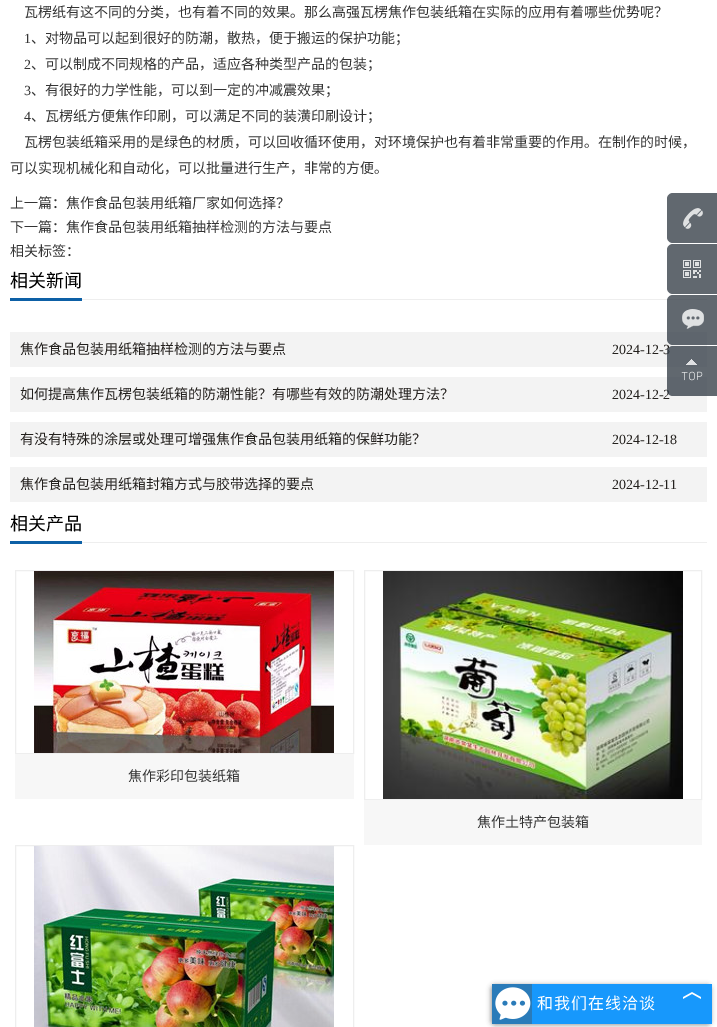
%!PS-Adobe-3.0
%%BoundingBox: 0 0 717 1027
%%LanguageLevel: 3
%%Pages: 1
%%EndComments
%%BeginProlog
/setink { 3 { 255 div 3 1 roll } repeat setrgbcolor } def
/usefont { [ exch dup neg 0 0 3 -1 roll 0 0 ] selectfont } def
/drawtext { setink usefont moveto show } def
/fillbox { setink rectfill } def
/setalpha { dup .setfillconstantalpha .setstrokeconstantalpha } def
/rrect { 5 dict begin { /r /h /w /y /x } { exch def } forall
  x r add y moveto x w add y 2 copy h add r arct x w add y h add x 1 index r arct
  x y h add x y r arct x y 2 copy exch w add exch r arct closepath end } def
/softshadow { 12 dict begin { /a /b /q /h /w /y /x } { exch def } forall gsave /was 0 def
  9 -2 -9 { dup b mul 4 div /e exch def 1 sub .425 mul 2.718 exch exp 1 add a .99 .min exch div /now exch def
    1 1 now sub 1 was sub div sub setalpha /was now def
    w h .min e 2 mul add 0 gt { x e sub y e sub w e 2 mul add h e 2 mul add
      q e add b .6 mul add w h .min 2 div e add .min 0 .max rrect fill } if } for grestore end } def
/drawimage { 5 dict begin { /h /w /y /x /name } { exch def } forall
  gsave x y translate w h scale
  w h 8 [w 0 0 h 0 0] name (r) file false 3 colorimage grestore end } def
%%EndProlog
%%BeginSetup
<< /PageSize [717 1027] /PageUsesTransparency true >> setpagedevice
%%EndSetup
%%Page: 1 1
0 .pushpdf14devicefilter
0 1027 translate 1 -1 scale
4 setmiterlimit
0 0 717 1027 255 255 255 fillbox
(瓦楞纸有这不同的分类，也有着不同的效果。那么高强瓦楞焦作包装纸箱在实际的应用有着哪些优势呢？) 24 17 /NotoSansCJKSC-Regular 14 52 52 52 drawtext
(1) 24 43 /LiberationSerif-Regular 14 52 52 52 drawtext
(、对物品可以起到很好的防潮，散热，便于搬运的保护功能；) 31 43 /NotoSansCJKSC-Regular 14 52 52 52 drawtext
(2) 24 69 /LiberationSerif-Regular 14 52 52 52 drawtext
(、可以制成不同规格的产品，适应各种类型产品的包装；) 31 69 /NotoSansCJKSC-Regular 14 52 52 52 drawtext
(3) 24 95 /LiberationSerif-Regular 14 52 52 52 drawtext
(、有很好的力学性能，可以到一定的冲减震效果；) 31 95 /NotoSansCJKSC-Regular 14 52 52 52 drawtext
(4) 24 121 /LiberationSerif-Regular 14 52 52 52 drawtext
(、瓦楞纸方便焦作印刷，可以满足不同的装潢印刷设计；) 31 121 /NotoSansCJKSC-Regular 14 52 52 52 drawtext
(瓦楞包装纸箱采用的是绿色的材质，可以回收循环使用，对环境保护也有着非常重要的作用。在制作的时候，) 24 147 /NotoSansCJKSC-Regular 14 52 52 52 drawtext
(可以实现机械化和自动化，可以批量进行生产，非常的方便。) 10 173 /NotoSansCJKSC-Regular 14 52 52 52 drawtext
(上一篇：焦作食品包装用纸箱厂家如何选择？) 10 208 /NotoSansCJKSC-Regular 14 52 52 52 drawtext
(下一篇：焦作食品包装用纸箱抽样检测的方法与要点) 10 232 /NotoSansCJKSC-Regular 14 52 52 52 drawtext
(相关标签：) 10 256 /NotoSansCJKSC-Regular 14 52 52 52 drawtext
82 299 625 1 238 238 238 fillbox
10 298 72 3 13 96 166 fillbox
(相关新闻) 10 287 /NotoSansCJKSC-Regular 18 0 0 0 drawtext
10 332 697 35 243 243 243 fillbox
(焦作食品包装用纸箱抽样检测的方法与要点) 20 354 /NotoSansCJKSC-Regular 14 35 32 29 drawtext
(2024-12-3) 612 354 /LiberationSerif-Regular 14 35 32 29 drawtext
10 377 697 35 243 243 243 fillbox
(如何提高焦作瓦楞包装纸箱的防潮性能？有哪些有效的防潮处理方法？) 20 399 /NotoSansCJKSC-Regular 14 35 32 29 drawtext
(2024-12-2) 612 399 /LiberationSerif-Regular 14 35 32 29 drawtext
10 422 697 35 243 243 243 fillbox
(有没有特殊的涂层或处理可增强焦作食品包装用纸箱的保鲜功能？) 20 444 /NotoSansCJKSC-Regular 14 35 32 29 drawtext
(2024-12-18) 612 444 /LiberationSerif-Regular 14 35 32 29 drawtext
10 467 697 35 243 243 243 fillbox
(焦作食品包装用纸箱封箱方式与胶带选择的要点) 20 489 /NotoSansCJKSC-Regular 14 35 32 29 drawtext
(2024-12-11) 612 489 /LiberationSerif-Regular 14 35 32 29 drawtext
82 542 625 1 238 238 238 fillbox
10 541 72 3 13 96 166 fillbox
(相关产品) 10 530 /NotoSansCJKSC-Regular 18 0 0 0 drawtext
238 238 238 setink
15.5 570.5 338 183 rectstroke
(assets/img1.rgb) 34 571 300 182 drawimage
15 754 339 45 247 247 247 fillbox
(焦作彩印包装纸箱) 128 781 /NotoSansCJKSC-Regular 14 52 52 52 drawtext
238 238 238 setink
364.5 570.5 337 229 rectstroke
(assets/img2.rgb) 383 571 300 228 drawimage
364 800 338 45 247 247 247 fillbox
(焦作土特产包装箱) 477 827 /NotoSansCJKSC-Regular 14 52 52 52 drawtext
238 238 238 setink
15.5 845.5 338 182 rectstroke
(assets/img3.rgb) 34 846 300 181 drawimage
97 104 111 setink
667 193 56 50 6 rrect fill
(assets/img4.rgb) 683 208 20 21 drawimage
667 244 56 50 6 rrect fill
(assets/img5.rgb) 683 260 18 18 drawimage
0.8 setalpha
57 66 75 setink
667 295 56 50 6 rrect fill
1 setalpha
(assets/img6.rgb) 682 309 22 20 drawimage
0.8 setalpha
667 346 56 50 6 rrect fill
1 setalpha
(assets/img7.rgb) 681 359 22 22 drawimage
0 0 0 setink
491 985 220 40 4 2.5 0.4 softshadow
532 984 180 40 23 152 252 fillbox
492 984 40 40 42 123 185 fillbox
(assets/img8.rgb) 495 987 36 33 drawimage
/NotoSansCJKSC-Regular 16 usefont
255 255 255 setink
537 1009 moveto 1 0 (和我们在线洽谈) ashow
(assets/img9.rgb) 683 992 18 7 drawimage
.poppdf14devicefilter showpage
%%EOF
